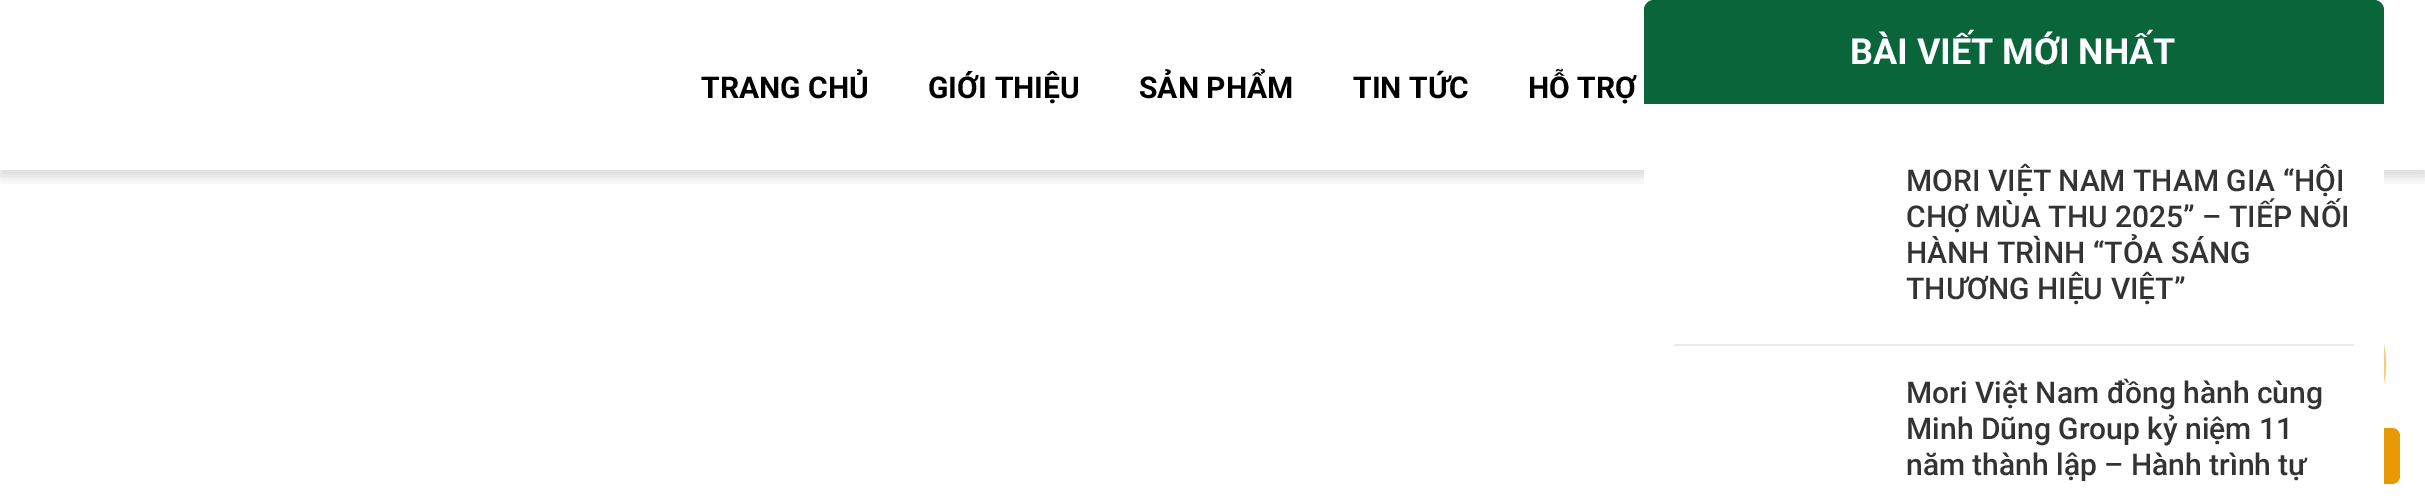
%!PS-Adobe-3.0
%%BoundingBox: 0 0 2425 504
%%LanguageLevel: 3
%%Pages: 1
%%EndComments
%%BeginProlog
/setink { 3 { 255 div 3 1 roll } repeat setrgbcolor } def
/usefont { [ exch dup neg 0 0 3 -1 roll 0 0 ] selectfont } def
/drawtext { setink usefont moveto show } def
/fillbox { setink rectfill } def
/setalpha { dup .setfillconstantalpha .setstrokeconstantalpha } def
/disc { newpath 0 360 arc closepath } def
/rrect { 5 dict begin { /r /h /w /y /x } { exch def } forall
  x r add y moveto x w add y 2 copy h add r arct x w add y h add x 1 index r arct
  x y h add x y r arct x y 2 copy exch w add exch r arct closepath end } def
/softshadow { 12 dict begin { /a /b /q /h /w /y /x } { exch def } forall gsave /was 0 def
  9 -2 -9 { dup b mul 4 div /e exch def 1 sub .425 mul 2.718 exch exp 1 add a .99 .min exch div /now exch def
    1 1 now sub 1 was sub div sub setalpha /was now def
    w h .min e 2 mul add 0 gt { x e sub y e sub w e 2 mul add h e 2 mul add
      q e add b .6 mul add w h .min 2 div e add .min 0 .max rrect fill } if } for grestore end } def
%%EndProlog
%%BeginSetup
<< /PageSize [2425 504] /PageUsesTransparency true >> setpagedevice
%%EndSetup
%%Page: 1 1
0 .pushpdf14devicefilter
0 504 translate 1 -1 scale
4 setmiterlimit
0 0 2425 504 255 255 255 fillbox
gsave
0 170 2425 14 rectclip
0 0 0 setink
0 6 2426 170 0 7 0.16 softshadow
grestore
(TRANG CHỦ) 701 98 /Roboto-Bold 30 0 0 0 drawtext
(GIỚI THIỆU) 928 98 /Roboto-Bold 30 0 0 0 drawtext
(SẢN PHẨM) 1139 98 /Roboto-Bold 30 0 0 0 drawtext
(TIN TỨC) 1353 98 /Roboto-Bold 30 0 0 0 drawtext
(HỖ TRỢ) 1528 98 /Roboto-Bold 30 0 0 0 drawtext
10 101 59 setink
1654 0 moveto 2374 0 lineto 2379.5 0 2384 4.5 2384 10 curveto 2384 104 lineto 1644 104 lineto 1644 10 lineto 1644 4.5 1648.5 0 1654 0 curveto closepath fill
(BÀI VIẾT MỚI NHẤT) 1850 64 /Roboto-Bold 36 255 255 255 drawtext
244 204 129 setink
4 setlinewidth
2286 364 98 disc stroke
232 152 3 setink
2186 428 214 56 8 rrect fill
1644 170 740 314 255 255 255 fillbox
1674 344 680 2 234 234 234 fillbox
(MORI VIỆT NAM THAM GIA “HỘI) 1906 191 /Roboto-Medium 30 51 51 51 drawtext
(CHỢ MÙA THU 2025” – TIẾP NỐI) 1906 227 /Roboto-Medium 30 51 51 51 drawtext
(HÀNH TRÌNH “TỎA SÁNG) 1906 263 /Roboto-Medium 30 51 51 51 drawtext
(THƯƠNG HIỆU VIỆT”) 1906 299 /Roboto-Medium 30 51 51 51 drawtext
(Mori Việt Nam đồng hành cùng) 1906 403 /Roboto-Medium 30 51 51 51 drawtext
(Minh Dũng Group kỷ niệm 11) 1906 439 /Roboto-Medium 30 51 51 51 drawtext
(năm thành lập – Hành trình tự) 1906 475 /Roboto-Medium 30 51 51 51 drawtext
.poppdf14devicefilter showpage
%%EOF
